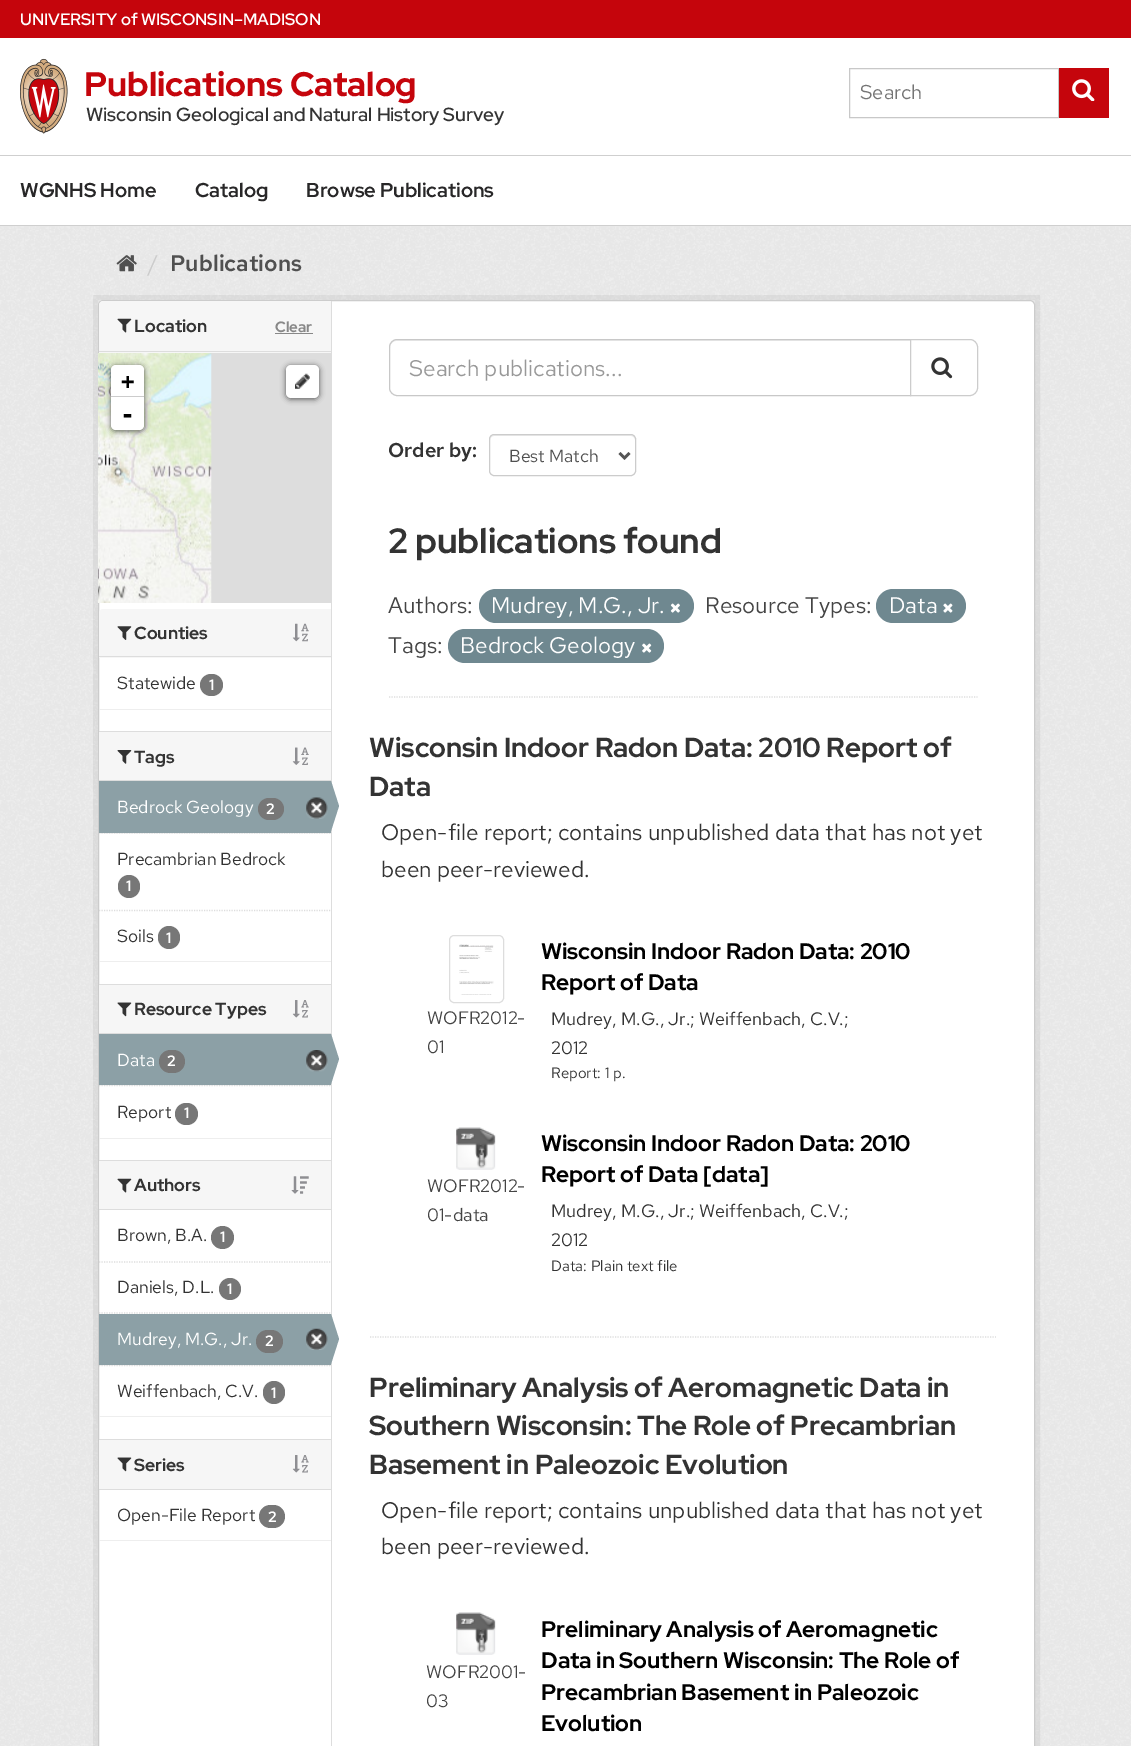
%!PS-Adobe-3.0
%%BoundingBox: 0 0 1131 1746
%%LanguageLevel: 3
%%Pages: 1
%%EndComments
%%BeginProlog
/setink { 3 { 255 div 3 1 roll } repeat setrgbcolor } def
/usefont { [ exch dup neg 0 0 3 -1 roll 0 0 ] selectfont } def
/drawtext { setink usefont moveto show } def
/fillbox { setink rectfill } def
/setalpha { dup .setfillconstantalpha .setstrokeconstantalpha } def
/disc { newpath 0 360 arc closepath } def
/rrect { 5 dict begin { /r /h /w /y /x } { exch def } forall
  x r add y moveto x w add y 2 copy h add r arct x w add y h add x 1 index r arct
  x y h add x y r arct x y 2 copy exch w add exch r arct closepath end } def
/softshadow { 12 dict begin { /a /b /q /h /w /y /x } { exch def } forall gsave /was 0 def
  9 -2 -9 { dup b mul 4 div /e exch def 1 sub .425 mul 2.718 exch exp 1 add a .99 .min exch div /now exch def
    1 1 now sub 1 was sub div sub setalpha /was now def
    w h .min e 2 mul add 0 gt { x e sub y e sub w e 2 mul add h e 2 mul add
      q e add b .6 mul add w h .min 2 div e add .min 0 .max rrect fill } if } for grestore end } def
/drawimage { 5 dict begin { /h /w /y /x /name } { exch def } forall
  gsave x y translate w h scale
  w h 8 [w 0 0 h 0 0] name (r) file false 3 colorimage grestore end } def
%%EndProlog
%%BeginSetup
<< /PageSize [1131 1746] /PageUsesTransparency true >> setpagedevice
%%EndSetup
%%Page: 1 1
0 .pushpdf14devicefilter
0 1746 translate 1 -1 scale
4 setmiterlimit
0 0 1131 1746 197 5 12 fillbox
(UNIVERSITY of WISCONSIN–MADISON) 20 25 /RedHatDisplay-SemiBold 16.5 255 255 255 drawtext
0 38 1131 117 255 255 255 fillbox
(assets/img1.rgb) 20 58 48 76 drawimage
(Publications Catalog) 84 96 /RedHatDisplay-ExtraBold 34 197 5 12 drawtext
(Wisconsin Geological and Natural History Survey) 86 121 /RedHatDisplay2-SemiBold 19 51 51 51 drawtext
200 200 200 setink
849.5 68.5 209 49 rectstroke
(Search) 860 99 /RedHatText-Regular 20 117 117 117 drawtext
1059 68 50 50 197 5 12 fillbox
(assets/img2.rgb) 1072 79 23 22 drawimage
0 156 1131 69 255 255 255 fillbox
0 155 1131 1 207 207 207 fillbox
0 225 1131 1 207 207 207 fillbox
(WGNHS Home) 20 197 /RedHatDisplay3-SemiBold 20 40 39 40 drawtext
(Catalog) 195 197 /RedHatDisplay3-SemiBold 20 40 39 40 drawtext
(Browse Publications) 306 197 /RedHatDisplay3-SemiBold 20 40 39 40 drawtext
0 226 1131 1520 238 238 238 fillbox
(assets/img3.rgb) 0 226 1131 1520 drawimage
(assets/img4.rgb) 116 255 21 17 drawimage
(/) 148 271 /RedHatText-Regular 22.5 204 204 204 drawtext
(Publications) 170 271 /RedHatText-SemiBold 22.5 80 80 80 drawtext
0.05 setalpha
0 0 0 setink
5 setlinewidth
95.5 297.5 942 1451 rectstroke
1 setalpha
255 255 255 setink
98.5 300.5 936 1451 4.5 rrect gsave fill grestore
204 204 204 setink
1 setlinewidth
stroke
246 246 246 setink
103 301 moveto 331 301 lineto 331 353 lineto 99 353 lineto 99 305 lineto 99 303 101 301 103 301 curveto closepath fill
99 351 232 1 221 221 221 fillbox
(assets/img5.rgb) 117 318 15 15 drawimage
(Location) 134 332 /RedHatDisplay-Bold 17.5 51 51 51 drawtext
(Clear) 275 332 /RedHatDisplay-Bold 15 136 136 136 drawtext
275 333 38 1 136 136 136 fillbox
211 353 120 250 221 221 221 fillbox
(assets/img6.rgb) 98 353 114 250 drawimage
0 0 0 setink
111 366 33 65 5 3 0.65 softshadow
255 255 255 setink
116 365 moveto 139 365 lineto 142 365 144 367 144 370 curveto 144 398 lineto 111 398 lineto 111 370 lineto 111 367 113 365 116 365 curveto closepath fill
111 396 33 1 204 204 204 fillbox
(+) 121 389 /DejaVuSansMono-Bold 22.5 0 0 0 drawtext
255 255 255 setink
111 398 moveto 144 398 lineto 144 425 lineto 144 428 142 430 139 430 curveto 116 430 lineto 113 430 111 428 111 425 curveto closepath fill
(-) 120 423 /DejaVuSansMono-Bold 25 0 0 0 drawtext
286 366 33 33 5 3 0.65 softshadow
255 255 255 setink
286 365 33 33 5 rrect fill
(assets/img7.rgb) 295 373 15 16 drawimage
246 246 246 setink
103 609 moveto 331 609 lineto 331 658 lineto 99 658 lineto 99 613 lineto 99 611 101 609 103 609 curveto closepath fill
99 656 232 1 221 221 221 fillbox
(assets/img8.rgb) 117 626 15 14 drawimage
(Counties) 134 639 /RedHatDisplay-Bold 17.5 51 51 51 drawtext
(assets/img9.rgb) 292 623 17 19 drawimage
(Statewide) 117 689 /RedHatText-Regular 17.5 51 51 51 drawtext
119 119 119 setink
200 674 23 22 11 rrect fill
(1) 209 690 /RedHatText-SemiBold 15 255 255 255 drawtext
99 709 232 1 238 238 238 fillbox
99 732 232 48 246 246 246 fillbox
99 731 232 1 221 221 221 fillbox
99 780 232 1 221 221 221 fillbox
(assets/img10.rgb) 117 750 15 14 drawimage
(Tags) 134 763 /RedHatDisplay-Bold 17.5 51 51 51 drawtext
(assets/img11.rgb) 292 747 17 18 drawimage
99 833 232 1 246 246 246 fillbox
221 221 221 setink
1.2 setlinewidth
[1.25 1.25] 0 setdash
99 833 moveto 331 833 lineto stroke
99 781 232 52 140 160 166 fillbox
(Bedrock Geology) 117 813 /RedHatText-Regular 17.5 255 255 255 drawtext
119 119 119 setink
258 798 26 22 11 rrect fill
(2) 266 814 /RedHatText-SemiBold 15 255 255 255 drawtext
(assets/img12.rgb) 306 797 22 22 drawimage
331 301 1 1445 221 221 221 fillbox
140 160 166 setink
331 831 moveto 331 781 lineto 339 806 lineto closepath fill
221 221 221 setink
99 910.5 moveto 331 910.5 lineto stroke
(Precambrian Bedrock) 117 865 /RedHatText-Regular 17.5 51 51 51 drawtext
119 119 119 setink
118 875 22 23 11 rrect fill
(1) 126 891 /RedHatText-SemiBold 15 255 255 255 drawtext
(Soils) 117 942 /RedHatText-Regular 17.5 51 51 51 drawtext
119 119 119 setink
158 926 22 23 11 rrect fill
(1) 166 943 /RedHatText-SemiBold 15 255 255 255 drawtext
99 961 232 1 238 238 238 fillbox
99 985 232 48 246 246 246 fillbox
99 984 232 1 221 221 221 fillbox
99 1033 232 1 221 221 221 fillbox
(assets/img13.rgb) 117 1002 15 15 drawimage
(Resource Types) 134 1015 /RedHatDisplay-Bold 17.5 51 51 51 drawtext
(assets/img14.rgb) 292 1000 17 18 drawimage
100 1085 231 1 246 246 246 fillbox
221 221 221 setink
99 1085.5 moveto 331 1085.5 lineto stroke
99 1034 232 51 140 160 166 fillbox
(Data) 117 1066 /RedHatText-Regular 17.5 255 255 255 drawtext
119 119 119 setink
159 1050 26 23 11.5 rrect fill
(2) 167 1066 /RedHatText-SemiBold 15 255 255 255 drawtext
(assets/img15.rgb) 306 1050 22 22 drawimage
140 160 166 setink
331 1084 moveto 331 1034 lineto 339 1059 lineto closepath fill
(Report) 117 1118 /RedHatText-Regular 17.5 51 51 51 drawtext
119 119 119 setink
175 1103 23 22 11 rrect fill
(1) 184 1118 /RedHatText-SemiBold 15 255 255 255 drawtext
99 1138 232 1 238 238 238 fillbox
99 1161 232 48 246 246 246 fillbox
99 1160 232 1 221 221 221 fillbox
99 1209 232 1 221 221 221 fillbox
(assets/img5.rgb) 117 1178 15 15 drawimage
(Authors) 134 1191 /RedHatDisplay-Bold 17.5 51 51 51 drawtext
(assets/img16.rgb) 291 1176 18 18 drawimage
221 221 221 setink
99 1262 moveto 331 1262 lineto stroke
(Brown, B.A.) 117 1241 /RedHatText-Regular 17.5 51 51 51 drawtext
119 119 119 setink
222.5 1237.5 11.5 disc fill
(1) 220 1242 /RedHatText-SemiBold 15 255 255 255 drawtext
221 221 221 setink
99 1313 moveto 331 1313 lineto stroke
(Daniels, D.L.) 117 1293 /RedHatText-Regular 17.5 51 51 51 drawtext
119 119 119 setink
230 1289 11 disc fill
(1) 227 1294 /RedHatText-SemiBold 15 255 255 255 drawtext
100 1365 231 1 246 246 246 fillbox
221 221 221 setink
99 1365.5 moveto 331 1365.5 lineto stroke
99 1314 232 51 140 160 166 fillbox
(Mudrey, M.G., Jr.) 117 1345 /RedHatText-Regular 17.5 255 255 255 drawtext
119 119 119 setink
256 1330 27 23 11.5 rrect fill
(2) 265 1346 /RedHatText-SemiBold 15 255 255 255 drawtext
(assets/img17.rgb) 306 1328 22 22 drawimage
140 160 166 setink
331 1364 moveto 331 1314 lineto 339 1339 lineto closepath fill
(Weiffenbach, C.V.) 117 1397 /RedHatText-Regular 17.5 51 51 51 drawtext
119 119 119 setink
263 1381 22 23 11 rrect fill
(1) 271 1398 /RedHatText-SemiBold 15 255 255 255 drawtext
99 1416 232 1 238 238 238 fillbox
99 1440 232 49 246 246 246 fillbox
99 1439 232 1 221 221 221 fillbox
99 1489 232 1 221 221 221 fillbox
(assets/img13.rgb) 117 1457 15 15 drawimage
(Series) 134 1471 /RedHatDisplay-Bold 17.5 51 51 51 drawtext
(assets/img14.rgb) 292 1455 17 18 drawimage
(Open-File Report) 117 1521 /RedHatText-Regular 17.5 51 51 51 drawtext
119 119 119 setink
259 1505 26 23 11.5 rrect fill
(2) 268 1522 /RedHatText-SemiBold 15 255 255 255 drawtext
99 1540 232 1 238 238 238 fillbox
221 221 221 setink
389 697 moveto 977.5 697 lineto stroke
236 236 236 setink
396 341 moveto 910 341 lineto 910 340 lineto 396 340 lineto 393 340 390 343 390 346 curveto 390 348 lineto 390 344 393 341 396 341 curveto closepath fill
200 200 200 setink
1 setlinewidth
[] 0 setdash
397 339.5 moveto 910.5 339.5 lineto 910.5 395.5 lineto 397 395.5 lineto 393 395.5 389.5 392 389.5 388 curveto 389.5 347 lineto 389.5 343 393 339.5 397 339.5 curveto closepath stroke
(Search publications...) 409 376 /RedHatText-Regular 22.5 153 153 153 drawtext
255 255 255 setink
910.5 339.5 moveto 970 339.5 lineto 974 339.5 977.5 343 977.5 347 curveto 977.5 388 lineto 977.5 392 974 395.5 970 395.5 curveto 910.5 395.5 lineto closepath gsave fill grestore
204 204 204 setink
stroke
(assets/img18.rgb) 931 357 22 22 drawimage
(Order by:) 388 457 /RedHatText-SemiBold 20 51 51 51 drawtext
236 236 236 setink
494 436 moveto 631 436 lineto 633 436 635 438 635 440 curveto 635 439 lineto 635 437 633 435 631 435 curveto 494 435 lineto 492 435 490 437 490 439 curveto 490 440 lineto 490 438 492 436 494 436 curveto closepath fill
204 204 204 setink
489.5 434.5 146 41 4.5 rrect stroke
85 85 85 setink
2.5 setlinewidth
619.5 453 moveto 624.5 458 lineto 629.5 453 lineto stroke
(Best Match) 509 462 /RedHatText-Regular 17.5 80 80 80 drawtext
(2 publications found) 388 553 /RedHatDisplay-Bold 35 51 51 51 drawtext
(Authors:) 388 613 /RedHatText-Regular 22.5 68 68 68 drawtext
111 136 144 setink
479 589 215 34 17 rrect fill
(Mudrey, M.G., Jr.) 491 613 /RedHatText-Regular 22.5 255 255 255 drawtext
(assets/img19.rgb) 670 603 10 10 drawimage
(Resource Types:) 705 613 /RedHatText-Regular 22.5 68 68 68 drawtext
111 136 144 setink
876 589 90 34 17 rrect fill
(Data) 889 613 /RedHatText-Regular 22.5 255 255 255 drawtext
(assets/img20.rgb) 943 603 10 10 drawimage
(Tags:) 388 653 /RedHatText-Regular 22.5 68 68 68 drawtext
111 136 144 setink
448 629 216 34 17 rrect fill
(Bedrock Geology) 460 653 /RedHatText-Regular 22.5 255 255 255 drawtext
(assets/img21.rgb) 642 643 10 10 drawimage
221 221 221 setink
1.2 setlinewidth
[1.25 1.25] 0 setdash
370 1337 moveto 996 1337 lineto stroke
(Wisconsin Indoor Radon Data: 2010 Report of) 369 757 /RedHatDisplay-Bold 27.5 51 51 51 drawtext
(Data) 369 796 /RedHatDisplay-Bold 27.5 51 51 51 drawtext
(Open-file report; contains unpublished data that has not yet) 381 840 /RedHatText-Regular 22.5 51 51 51 drawtext
(been peer-reviewed.) 381 877 /RedHatText-Regular 22.5 51 51 51 drawtext
221 221 221 setink
1 setlinewidth
[] 0 setdash
449.5 935.5 54 67 4.5 rrect stroke
(assets/img22.rgb) 459 944 35 51 drawimage
(WOFR2012-) 427 1024 /RedHatText-Regular 18 68 68 68 drawtext
(01) 427 1053 /RedHatText-Regular 18 68 68 68 drawtext
(Wisconsin Indoor Radon Data: 2010) 541 959 /RedHatDisplay-Bold 22.5 0 0 0 drawtext
(Report of Data) 541 990 /RedHatDisplay-Bold 22.5 0 0 0 drawtext
(Mudrey, M.G., Jr.; Weiffenbach, C.V.;) 551 1025 /RedHatText-Regular 18 51 51 51 drawtext
(2012) 551 1054 /RedHatText-Regular 18 51 51 51 drawtext
(Report: 1 p.) 551 1078 /RedHatText-Regular 15 51 51 51 drawtext
(assets/img23.rgb) 456 1127 40 43 drawimage
(WOFR2012-) 427 1192 /RedHatText-Regular 18 68 68 68 drawtext
(01-data) 427 1221 /RedHatText-Regular 18 68 68 68 drawtext
(Wisconsin Indoor Radon Data: 2010) 541 1151 /RedHatDisplay-Bold 22.5 0 0 0 drawtext
(Report of Data [data]) 541 1182 /RedHatDisplay-Bold 22.5 0 0 0 drawtext
(Mudrey, M.G., Jr.; Weiffenbach, C.V.;) 551 1217 /RedHatText-Regular 18 51 51 51 drawtext
(2012) 551 1246 /RedHatText-Regular 18 51 51 51 drawtext
(Data: Plain text file) 551 1271 /RedHatText-Regular 15 51 51 51 drawtext
(Preliminary Analysis of Aeromagnetic Data in) 369 1397 /RedHatDisplay-Bold 27.5 51 51 51 drawtext
(Southern Wisconsin: The Role of Precambrian) 369 1435 /RedHatDisplay-Bold 27.5 51 51 51 drawtext
(Basement in Paleozoic Evolution) 369 1474 /RedHatDisplay-Bold 27.5 51 51 51 drawtext
(Open-file report; contains unpublished data that has not yet) 381 1518 /RedHatText-Regular 22.5 51 51 51 drawtext
(been peer-reviewed.) 381 1554 /RedHatText-Regular 22.5 51 51 51 drawtext
(assets/img23.rgb) 456 1612 40 43 drawimage
(WOFR2001-) 426 1678 /RedHatText-Regular 18 68 68 68 drawtext
(03) 426 1707 /RedHatText-Regular 18 68 68 68 drawtext
(Preliminary Analysis of Aeromagnetic) 541 1637 /RedHatDisplay-Bold 22.5 0 0 0 drawtext
(Data in Southern Wisconsin: The Role of) 541 1668 /RedHatDisplay-Bold 22.5 0 0 0 drawtext
(Precambrian Basement in Paleozoic) 541 1700 /RedHatDisplay-Bold 22.5 0 0 0 drawtext
(Evolution) 541 1731 /RedHatDisplay-Bold 22.5 0 0 0 drawtext
.poppdf14devicefilter showpage
%%EOF
